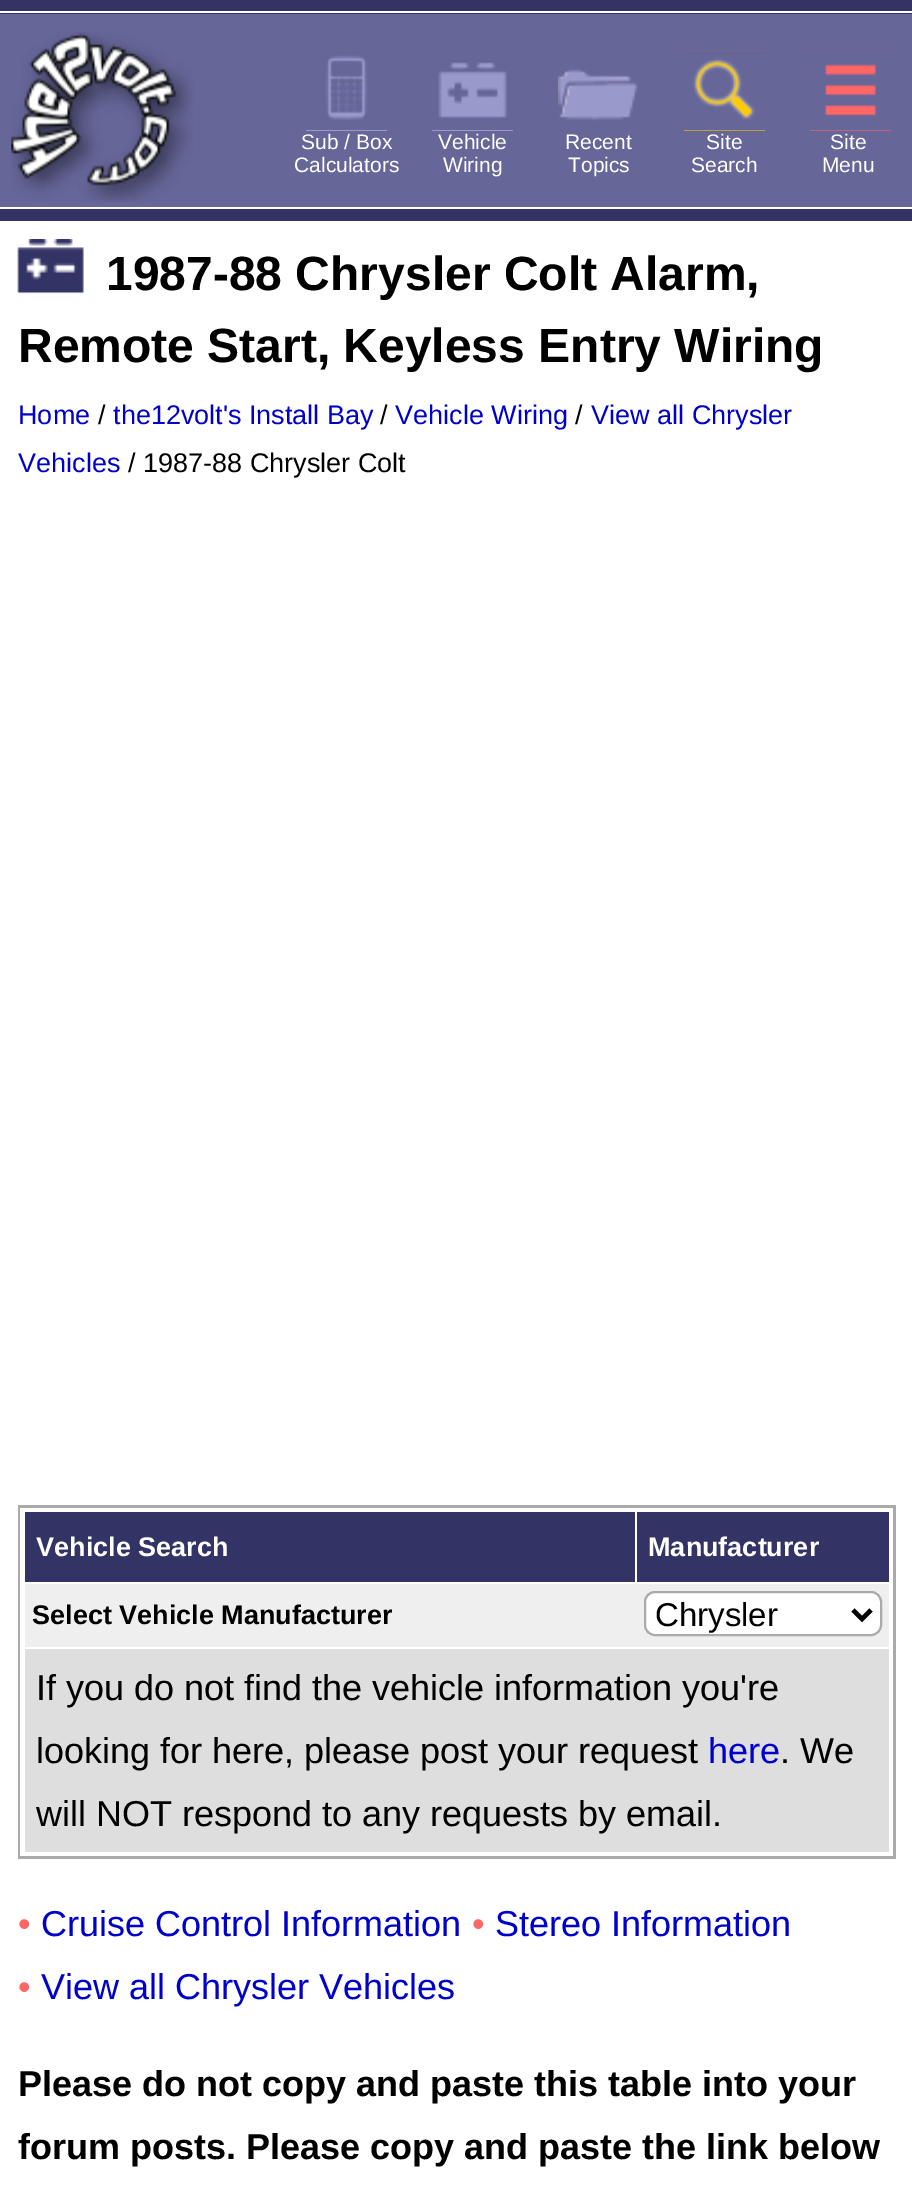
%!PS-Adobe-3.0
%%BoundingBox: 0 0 912 2189
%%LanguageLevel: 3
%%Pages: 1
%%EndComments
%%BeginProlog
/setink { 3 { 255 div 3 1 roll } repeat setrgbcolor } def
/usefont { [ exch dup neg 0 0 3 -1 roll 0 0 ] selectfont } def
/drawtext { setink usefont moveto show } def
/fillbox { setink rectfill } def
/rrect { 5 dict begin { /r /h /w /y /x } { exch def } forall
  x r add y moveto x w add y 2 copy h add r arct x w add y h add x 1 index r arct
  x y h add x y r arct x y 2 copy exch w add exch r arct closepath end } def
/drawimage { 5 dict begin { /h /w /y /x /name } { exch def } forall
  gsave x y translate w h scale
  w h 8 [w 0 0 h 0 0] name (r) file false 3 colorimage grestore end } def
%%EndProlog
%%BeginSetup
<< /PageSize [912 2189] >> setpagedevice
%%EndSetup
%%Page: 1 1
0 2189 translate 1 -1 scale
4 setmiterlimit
0 0 912 2189 255 255 255 fillbox
0 0 912 14 51 51 102 fillbox
0 11 912 2 255 255 255 fillbox
0 14 912 193 102 102 153 fillbox
(assets/img1.rgb) 11 32 182 170 drawimage
306 55 81 76 153 153 204 fillbox
(assets/img2.rgb) 306 50 81 78 drawimage
306 128 81 2 102 102 153 fillbox
(Sub / Box) 301 149 /LiberationSans-Regular 21 255 255 255 drawtext
(Calculators) 294 172 /LiberationSans-Regular 21 255 255 255 drawtext
432 60 81 71 153 153 204 fillbox
(assets/img3.rgb) 432 50 81 78 drawimage
432 128 81 2 102 102 153 fillbox
(Vehicle) 438 149 /LiberationSans-Regular 21 255 255 255 drawtext
(Wiring) 443 172 /LiberationSans-Regular 21 255 255 255 drawtext
558 69 80 52 153 153 204 fillbox
(assets/img4.rgb) 558 55 81 76 drawimage
(Recent) 565 149 /LiberationSans-Regular 21 255 255 255 drawtext
(Topics) 568 172 /LiberationSans-Regular 21 255 255 255 drawtext
684 50 81 81 255 204 0 fillbox
(assets/img5.rgb) 684 50 81 81 drawimage
(Site) 706 149 /LiberationSans-Regular 21 255 255 255 drawtext
(Search) 691 172 /LiberationSans-Regular 21 255 255 255 drawtext
810 50 81 81 255 102 102 fillbox
(assets/img6.rgb) 810 50 81 81 drawimage
(Site) 830 149 /LiberationSans-Regular 21 255 255 255 drawtext
(Menu) 822 172 /LiberationSans-Regular 21 255 255 255 drawtext
0 209 912 12 51 51 102 fillbox
(assets/img7.rgb) 17 239 67 55 drawimage
(1987-88 Chrysler Colt Alarm,) 106 290 /LiberationSans-Bold 48 0 0 0 drawtext
(Remote Start, Keyless Entry Wiring) 18 362 /LiberationSans-Bold 48 0 0 0 drawtext
(Home) 18 424 /LiberationSans-Regular 27 0 0 204 drawtext
(/) 98 424 /LiberationSans-Regular 27 0 0 0 drawtext
(the12volt's Install Bay) 113 424 /LiberationSans-Regular 27 0 0 204 drawtext
(/) 380 424 /LiberationSans-Regular 27 0 0 0 drawtext
(Vehicle Wiring) 395 424 /LiberationSans-Regular 27 0 0 204 drawtext
(/) 575 424 /LiberationSans-Regular 27 0 0 0 drawtext
(View all Chrysler) 591 424 /LiberationSans-Regular 27 0 0 204 drawtext
(Vehicles) 18 472 /LiberationSans-Regular 27 0 0 204 drawtext
(/ 1987-88 Chrysler Colt) 128 472 /LiberationSans-Regular 27 0 0 0 drawtext
18 1505 878 354 170 170 170 fillbox
20 1508 873 348 255 255 255 fillbox
25 1512 610 70 51 51 102 fillbox
(Vehicle Search) 36 1556 /LiberationSans-Bold 27 255 255 255 drawtext
637 1512 252 70 51 51 102 fillbox
(Manufacturer) 648 1556 /LiberationSans-Bold 27 255 255 255 drawtext
25 1584 864 63 239 239 239 fillbox
(Select Vehicle Manufacturer) 32 1624 /LiberationSans-Bold 27 0 0 0 drawtext
255 255 255 setink
645 1592 236 43 10 rrect gsave fill grestore
170 170 170 setink
2 setlinewidth
stroke
0 0 0 setink
4.5 setlinewidth
853 1610 moveto 862 1619 lineto 871 1610 lineto stroke
(Chrysler) 655 1626 /LiberationSans-Regular 33 0 0 0 drawtext
25 1649 864 203 222 222 222 fillbox
(If you do not find the vehicle information you're) 36 1700 /LiberationSans-Regular 36 0 0 0 drawtext
(looking for here, please post your request) 36 1763 /LiberationSans-Regular 36 0 0 0 drawtext
(here) 708 1763 /LiberationSans-Regular 36 0 0 204 drawtext
(. We) 780 1763 /LiberationSans-Regular 36 0 0 0 drawtext
(will NOT respond to any requests by email.) 36 1826 /LiberationSans-Regular 36 0 0 0 drawtext
(•) 18 1936 /LiberationSans-Regular 36 255 102 102 drawtext
(Cruise Control Information) 41 1936 /LiberationSans-Regular 36 0 0 204 drawtext
(•) 472 1936 /LiberationSans-Regular 36 255 102 102 drawtext
(Stereo Information) 495 1936 /LiberationSans-Regular 36 0 0 204 drawtext
(•) 18 1999 /LiberationSans-Regular 36 255 102 102 drawtext
(View all Chrysler Vehicles) 41 1999 /LiberationSans-Regular 36 0 0 204 drawtext
(Please do not copy and paste this table into your) 18 2096 /LiberationSans-Bold 36 0 0 0 drawtext
(forum posts. Please copy and paste the link below) 18 2159 /LiberationSans-Bold 36 0 0 0 drawtext
showpage
%%EOF
